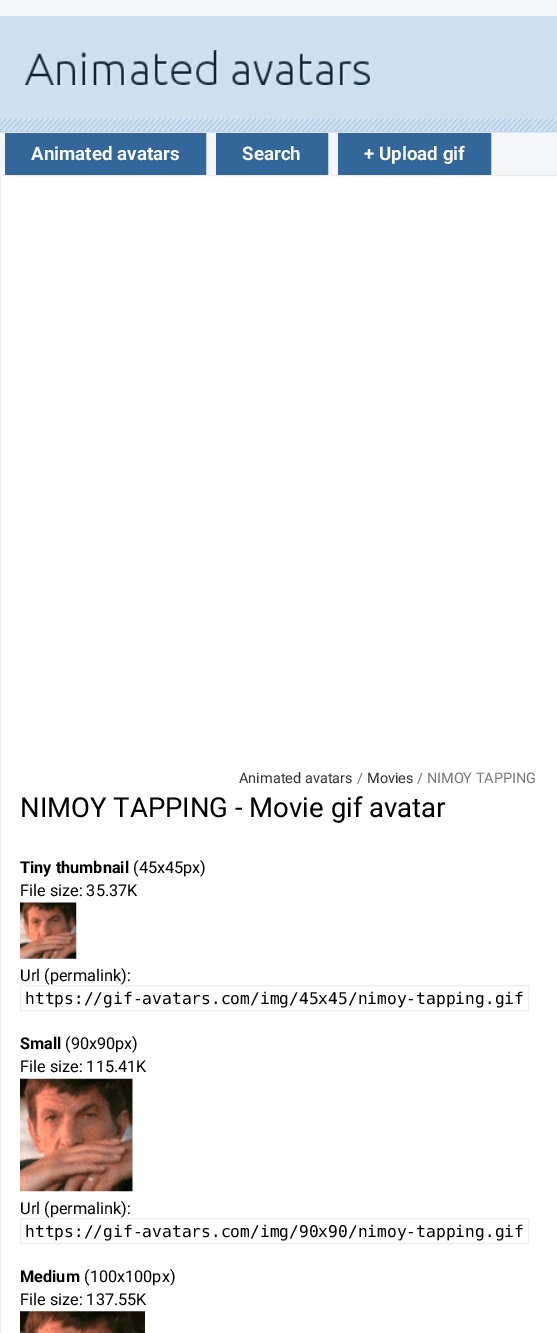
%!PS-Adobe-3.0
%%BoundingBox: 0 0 557 1333
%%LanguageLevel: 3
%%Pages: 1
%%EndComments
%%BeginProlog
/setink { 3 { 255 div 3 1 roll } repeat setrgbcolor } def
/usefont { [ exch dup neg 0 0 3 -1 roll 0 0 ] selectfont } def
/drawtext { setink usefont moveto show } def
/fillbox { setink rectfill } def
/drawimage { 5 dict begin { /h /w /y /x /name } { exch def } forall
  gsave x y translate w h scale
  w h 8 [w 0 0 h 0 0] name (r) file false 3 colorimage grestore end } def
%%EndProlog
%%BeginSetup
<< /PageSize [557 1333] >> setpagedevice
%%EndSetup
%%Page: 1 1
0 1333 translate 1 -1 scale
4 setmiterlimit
0 0 557 1333 245 246 247 fillbox
(assets/img1.rgb) 0 16 557 117 drawimage
(assets/img2.rgb) 25 50 345 35 drawimage
51 102 153 setink
5.5 133.5 moveto 205.5 133.5 lineto 205.5 174.5 lineto 5.5 174.5 lineto closepath gsave fill grestore
56 102 163 setink
stroke
(Animated avatars) 31 160 /Roboto-Bold 18.75 250 250 250 drawtext
51 102 153 setink
216.5 133.5 moveto 327.5 133.5 lineto 327.5 174.5 lineto 216.5 174.5 lineto closepath gsave fill grestore
56 102 163 setink
stroke
(Search) 242 160 /Roboto-Bold 18.75 250 250 250 drawtext
51 102 153 setink
338.5 133.5 moveto 490.5 133.5 lineto 490.5 174.5 lineto 338.5 174.5 lineto closepath gsave fill grestore
56 102 163 setink
stroke
(+ Upload gif) 364 160 /Roboto-Bold 18.75 250 250 250 drawtext
255 255 255 setink
0.5 175.5 moveto 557.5 175.5 lineto 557.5 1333.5 lineto 0.5 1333.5 lineto closepath gsave fill grestore
238 238 238 setink
stroke
(Animated avatars) 239 783 /Roboto-Regular 14.5 51 51 51 drawtext
(/) 357 783 /Roboto-Regular 14.5 119 119 119 drawtext
(Movies) 367 783 /Roboto-Regular 14.5 51 51 51 drawtext
(/ NIMOY TAPPING) 417 783 /Roboto-Regular 14.5 119 119 119 drawtext
(NIMOY TAPPING - Movie gif avatar) 20 817 /Roboto-Regular 27.5 0 0 0 drawtext
(Tiny thumbnail) 20 873 /Roboto-Bold 16.25 0 0 0 drawtext
(\(45x45px\)) 133 873 /Roboto-Regular 16.25 0 0 0 drawtext
(File size: 35.37K) 20 896 /Roboto-Regular 16.25 0 0 0 drawtext
(assets/img3.rgb) 20 902 57 57 drawimage
(Url \(permalink\):) 20 981 /Roboto-Regular 16.25 0 0 0 drawtext
238 238 238 setink
20.5 985.5 508 25 rectstroke
(https://gif-avatars.com/img/45x45/nimoy-tapping.gif) 25 1004 /DejaVuSansMono-Regular 16.25 0 0 0 drawtext
(Small) 20 1049 /Roboto-Bold 16.25 0 0 0 drawtext
(\(90x90px\)) 65 1049 /Roboto-Regular 16.25 0 0 0 drawtext
(File size: 115.41K) 20 1072 /Roboto-Regular 16.25 0 0 0 drawtext
(assets/img4.rgb) 20 1078 113 114 drawimage
(Url \(permalink\):) 20 1214 /Roboto-Regular 16.25 0 0 0 drawtext
238 238 238 setink
20.5 1218.5 508 25 rectstroke
(https://gif-avatars.com/img/90x90/nimoy-tapping.gif) 25 1237 /DejaVuSansMono-Regular 16.25 0 0 0 drawtext
(Medium) 20 1282 /Roboto-Bold 16.25 0 0 0 drawtext
(\(100x100px\)) 84 1282 /Roboto-Regular 16.25 0 0 0 drawtext
(File size: 137.55K) 20 1305 /Roboto-Regular 16.25 0 0 0 drawtext
(assets/img5.rgb) 20 1311 125 22 drawimage
showpage
%%EOF
